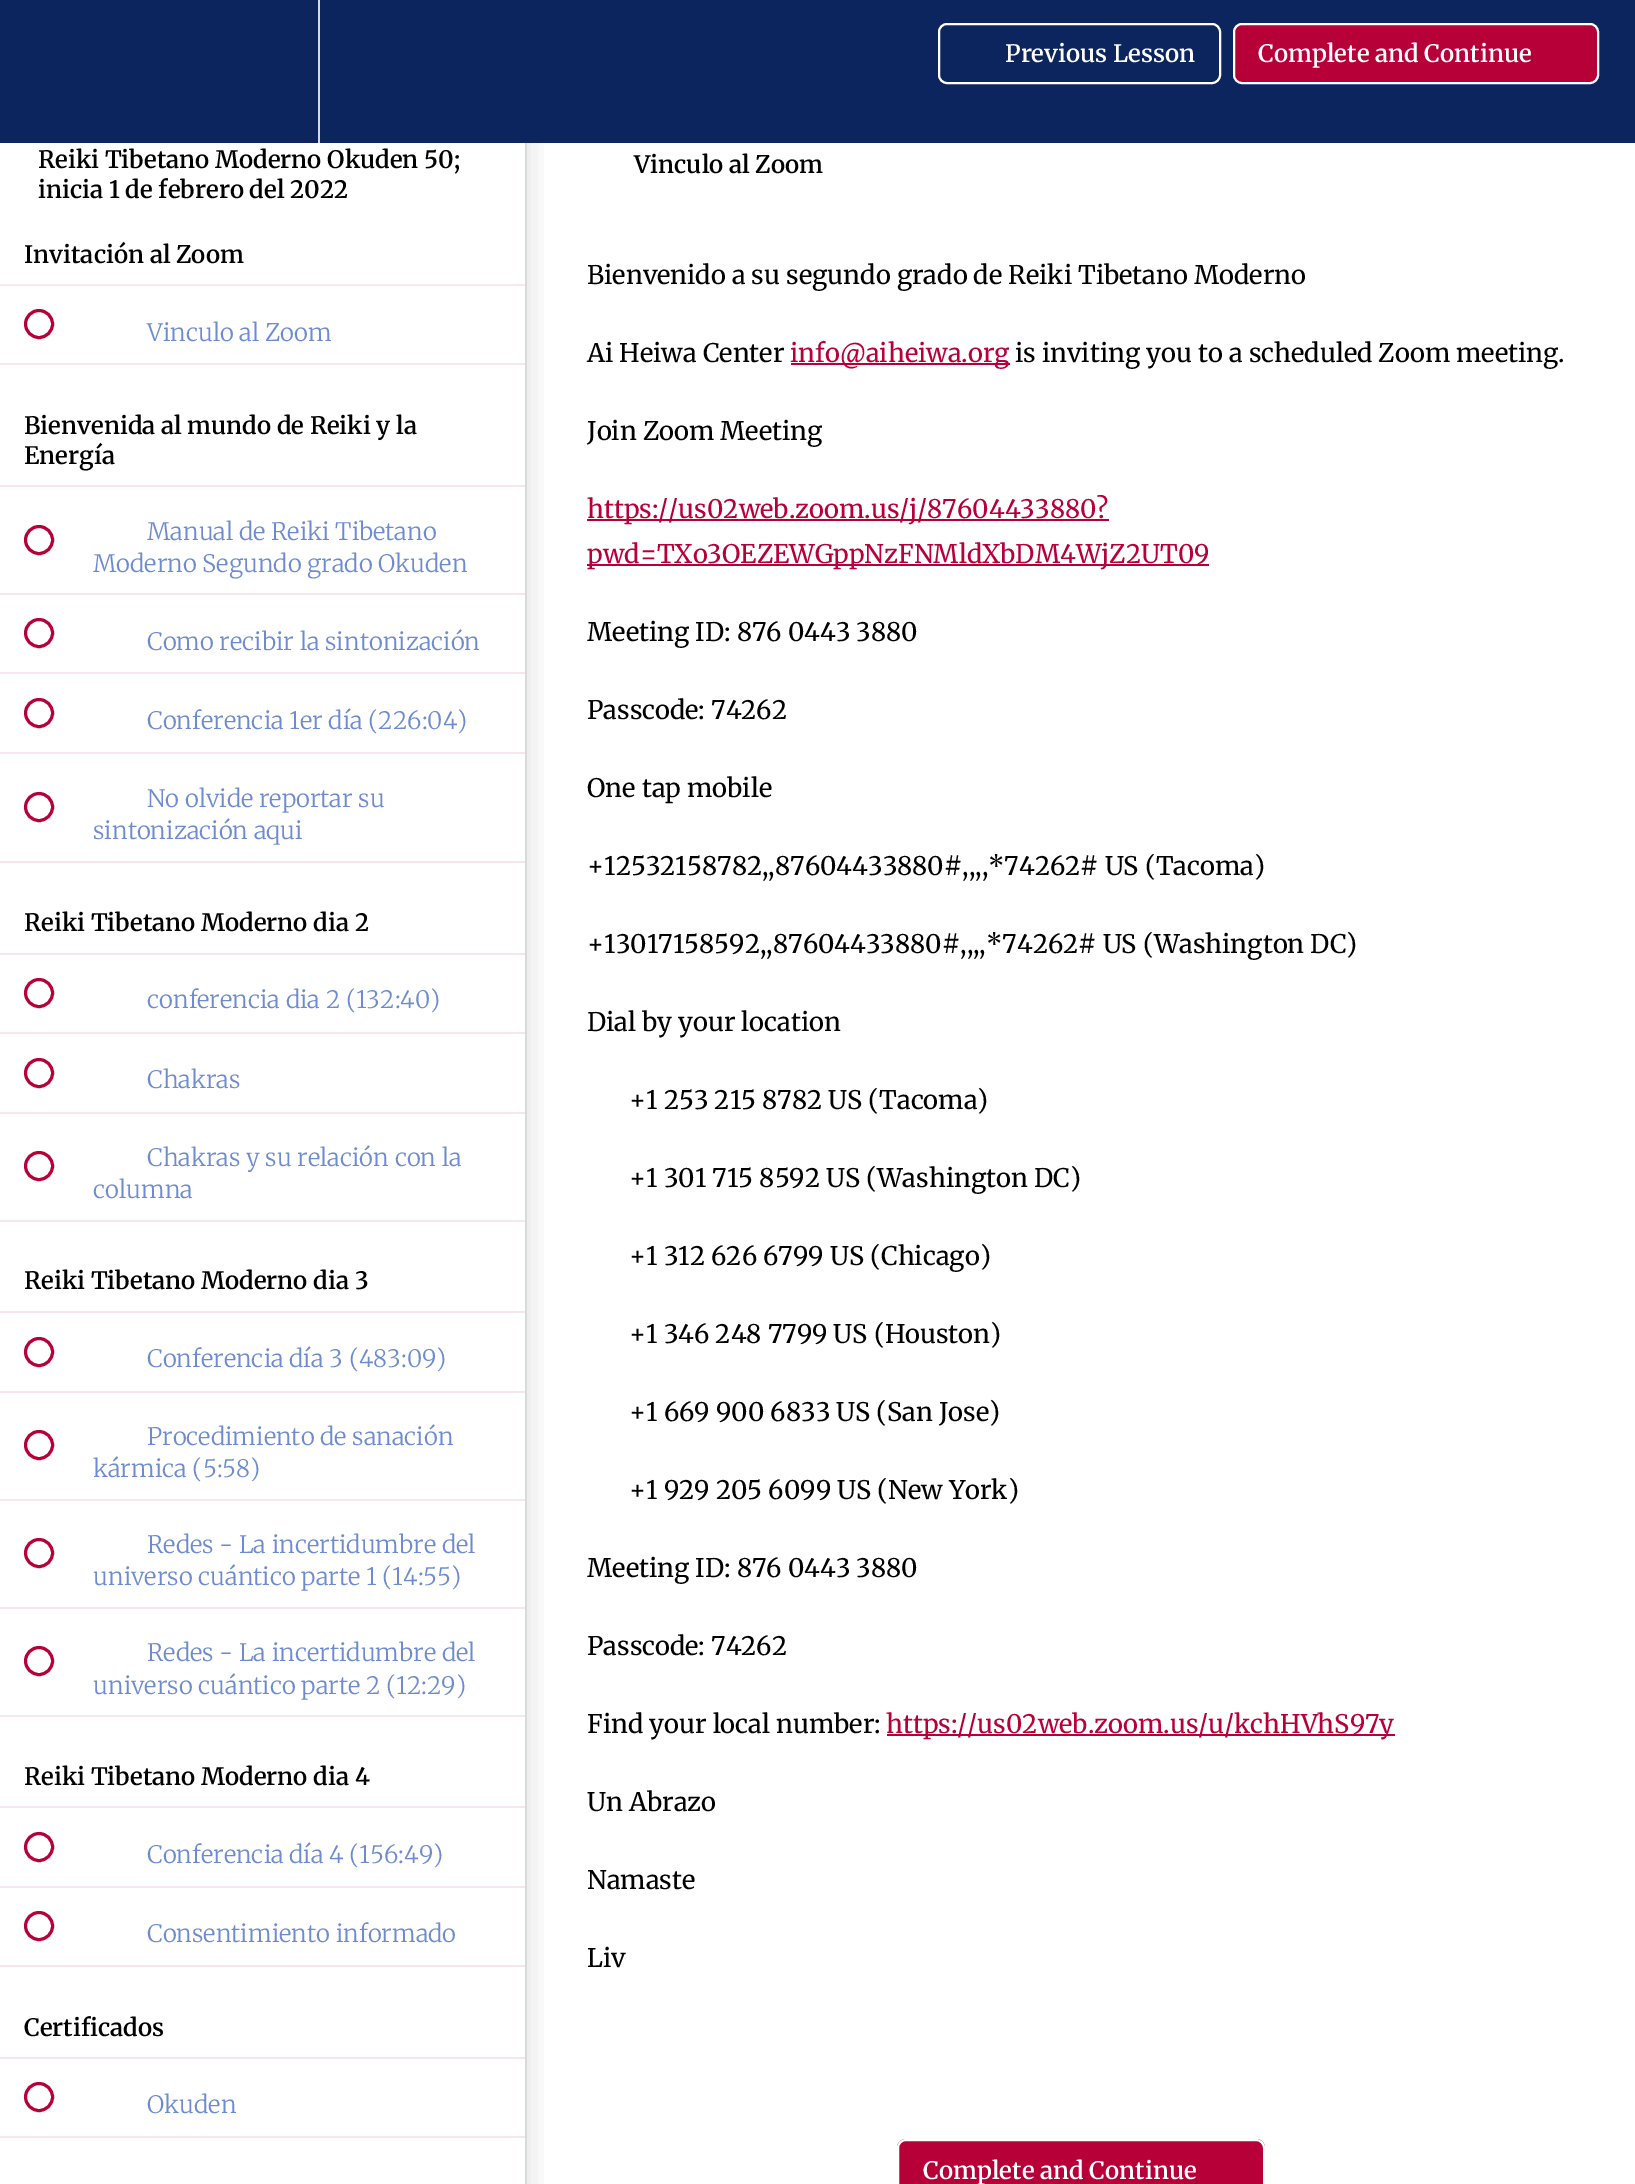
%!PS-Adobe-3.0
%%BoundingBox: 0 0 1635 2184
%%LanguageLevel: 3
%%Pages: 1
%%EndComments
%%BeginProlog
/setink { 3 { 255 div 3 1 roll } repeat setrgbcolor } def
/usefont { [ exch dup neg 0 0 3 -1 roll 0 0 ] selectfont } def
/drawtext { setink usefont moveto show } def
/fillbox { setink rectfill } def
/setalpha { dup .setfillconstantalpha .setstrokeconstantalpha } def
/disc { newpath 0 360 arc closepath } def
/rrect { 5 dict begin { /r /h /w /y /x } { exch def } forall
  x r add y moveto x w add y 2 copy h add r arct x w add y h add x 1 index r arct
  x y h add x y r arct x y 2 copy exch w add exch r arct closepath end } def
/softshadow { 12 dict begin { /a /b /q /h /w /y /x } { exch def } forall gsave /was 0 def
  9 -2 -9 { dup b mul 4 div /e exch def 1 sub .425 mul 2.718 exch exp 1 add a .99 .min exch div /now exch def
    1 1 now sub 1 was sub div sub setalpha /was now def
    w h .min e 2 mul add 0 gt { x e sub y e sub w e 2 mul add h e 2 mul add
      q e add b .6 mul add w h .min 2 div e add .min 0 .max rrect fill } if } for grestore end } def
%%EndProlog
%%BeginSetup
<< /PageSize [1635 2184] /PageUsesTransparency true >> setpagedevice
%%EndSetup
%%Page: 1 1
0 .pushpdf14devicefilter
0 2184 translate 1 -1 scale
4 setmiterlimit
0 0 1635 2184 255 255 255 fillbox
gsave
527 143 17 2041 rectclip
32 39 45 setink
0 116 527 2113 0 15 0.15 softshadow
grestore
0 0 1635 143 12 37 95 fillbox
318 0 2 143 215 218 219 fillbox
255 255 255 setink
2 setlinewidth
939 24 281 59 8 rrect stroke
(Previous Lesson) 1005 62 /Merriweather-SemiBold 24 255 255 255 drawtext
182 0 55 setink
1234 24 364 59 8 rrect gsave fill grestore
255 255 255 setink
stroke
(Complete and Continue) 1258 62 /Merriweather-SemiBold 24 255 255 255 drawtext
525 143 2 2041 215 218 219 fillbox
(Reiki Tibetano Moderno Okuden 50;) 38 168 /Merriweather-SemiBold 24 0 0 0 drawtext
(inicia 1 de febrero del 2022) 38 198 /Merriweather-SemiBold 24 0 0 0 drawtext
0 284 525 2 248 230 235 fillbox
(Invitación al Zoom) 24 263 /Merriweather-SemiBold 24 0 0 0 drawtext
0 363 525 2 248 230 235 fillbox
182 0 55 setink
3 setlinewidth
39 324 13.5 disc stroke
(Vinculo al Zoom) 147 341 /Merriweather-Light 24 110 139 208 drawtext
0 485 525 2 248 230 235 fillbox
(Bienvenida al mundo de Reiki y la) 24 434 /Merriweather-SemiBold 24 0 0 0 drawtext
(Energía) 24 464 /Merriweather-SemiBold 24 0 0 0 drawtext
0 593 525 2 248 230 235 fillbox
182 0 55 setink
39 540 13.5 disc stroke
(Manual de Reiki Tibetano) 147 540 /Merriweather-Light 24 110 139 208 drawtext
(Moderno Segundo grado Okuden) 93 572 /Merriweather-Light 24 110 139 208 drawtext
0 672 525 2 248 230 235 fillbox
182 0 55 setink
39 633 13.5 disc stroke
(Como recibir la sintonización) 147 650 /Merriweather-Light 24 110 139 208 drawtext
0 752 525 2 248 230 235 fillbox
182 0 55 setink
39 713 13.5 disc stroke
(Conferencia 1er día \(226:04\)) 147 729 /Merriweather-Light 24 110 139 208 drawtext
0 861 525 2 248 230 235 fillbox
182 0 55 setink
39 807 13.5 disc stroke
(No olvide reportar su) 147 807 /Merriweather-Light 24 110 139 208 drawtext
(sintonización aqui) 93 839 /Merriweather-Light 24 110 139 208 drawtext
0 953 525 2 248 230 235 fillbox
(Reiki Tibetano Moderno dia 2) 24 931 /Merriweather-SemiBold 24 0 0 0 drawtext
0 1032 525 2 248 230 235 fillbox
182 0 55 setink
39 993 13.5 disc stroke
(conferencia dia 2 \(132:40\)) 147 1008 /Merriweather-Light 24 110 139 208 drawtext
0 1112 525 2 248 230 235 fillbox
182 0 55 setink
39 1073 13.5 disc stroke
(Chakras) 147 1088 /Merriweather-Light 24 110 139 208 drawtext
0 1220 525 2 248 230 235 fillbox
182 0 55 setink
39 1166 13.5 disc stroke
(Chakras y su relación con la) 147 1166 /Merriweather-Light 24 110 139 208 drawtext
(columna) 93 1198 /Merriweather-Light 24 110 139 208 drawtext
0 1311 525 2 248 230 235 fillbox
(Reiki Tibetano Moderno dia 3) 24 1289 /Merriweather-SemiBold 24 0 0 0 drawtext
0 1391 525 2 248 230 235 fillbox
182 0 55 setink
39 1352 13.5 disc stroke
(Conferencia día 3 \(483:09\)) 147 1367 /Merriweather-Light 24 110 139 208 drawtext
0 1499 525 2 248 230 235 fillbox
182 0 55 setink
39 1445 13.5 disc stroke
(Procedimiento de sanación) 147 1445 /Merriweather-Light 24 110 139 208 drawtext
(kármica \(5:58\)) 93 1477 /Merriweather-Light 24 110 139 208 drawtext
0 1607 525 2 248 230 235 fillbox
182 0 55 setink
39 1553 13.5 disc stroke
(Redes - La incertidumbre del) 147 1553 /Merriweather-Light 24 110 139 208 drawtext
(universo cuántico parte 1 \(14:55\)) 93 1585 /Merriweather-Light 24 110 139 208 drawtext
0 1715 525 2 248 230 235 fillbox
182 0 55 setink
39 1661 13.5 disc stroke
(Redes - La incertidumbre del) 147 1661 /Merriweather-Light 24 110 139 208 drawtext
(universo cuántico parte 2 \(12:29\)) 93 1694 /Merriweather-Light 24 110 139 208 drawtext
0 1806 525 2 248 230 235 fillbox
(Reiki Tibetano Moderno dia 4) 24 1785 /Merriweather-SemiBold 24 0 0 0 drawtext
0 1886 525 2 248 230 235 fillbox
182 0 55 setink
39 1847 13.5 disc stroke
(Conferencia día 4 \(156:49\)) 147 1863 /Merriweather-Light 24 110 139 208 drawtext
0 1965 525 2 248 230 235 fillbox
182 0 55 setink
39 1926 13.5 disc stroke
(Consentimiento informado) 147 1942 /Merriweather-Light 24 110 139 208 drawtext
0 2057 525 2 248 230 235 fillbox
(Certificados) 24 2036 /Merriweather-SemiBold 24 0 0 0 drawtext
0 2136 525 2 248 230 235 fillbox
182 0 55 setink
39 2097 13.5 disc stroke
(Okuden) 147 2113 /Merriweather-Light 24 110 139 208 drawtext
(Vinculo al Zoom) 634 173 /Merriweather-SemiBold 24 0 0 0 drawtext
(Bienvenido a su segundo grado de Reiki Tibetano Moderno) 587 284 /Merriweather-Regular 25.5 0 0 0 drawtext
(Ai Heiwa Center) 587 362 /Merriweather-Regular 25.5 0 0 0 drawtext
791 363 219 2 182 0 55 fillbox
(info@aiheiwa.org) 790 362 /Merriweather-Regular 25.5 182 0 55 drawtext
(is inviting you to a scheduled Zoom meeting.) 1015 362 /Merriweather-Regular 25.5 0 0 0 drawtext
(Join Zoom Meeting) 587 440 /Merriweather-Regular 25.5 0 0 0 drawtext
587 519 522 2 182 0 55 fillbox
(https://us02web.zoom.us/j/87604433880?) 587 518 /Merriweather-Regular 25.5 182 0 55 drawtext
587 564 622 2 182 0 55 fillbox
(pwd=TXo3OEZEWGppNzFNMldXbDM4WjZ2UT09) 587 563 /Merriweather-Regular 25.5 182 0 55 drawtext
(Meeting ID: 876 0443 3880) 587 641 /Merriweather-Regular 25.5 0 0 0 drawtext
(Passcode: 74262) 587 719 /Merriweather-Regular 25.5 0 0 0 drawtext
(One tap mobile) 587 797 /Merriweather-Regular 25.5 0 0 0 drawtext
(+12532158782,,87604433880#,,,,*74262# US \(Tacoma\)) 587 875 /Merriweather-Regular 25.5 0 0 0 drawtext
(+13017158592,,87604433880#,,,,*74262# US \(Washington DC\)) 587 953 /Merriweather-Regular 25.5 0 0 0 drawtext
(Dial by your location) 587 1031 /Merriweather-Regular 25.5 0 0 0 drawtext
(+1 253 215 8782 US \(Tacoma\)) 629 1109 /Merriweather-Regular 25.5 0 0 0 drawtext
(+1 301 715 8592 US \(Washington DC\)) 629 1187 /Merriweather-Regular 25.5 0 0 0 drawtext
(+1 312 626 6799 US \(Chicago\)) 629 1265 /Merriweather-Regular 25.5 0 0 0 drawtext
(+1 346 248 7799 US \(Houston\)) 629 1343 /Merriweather-Regular 25.5 0 0 0 drawtext
(+1 669 900 6833 US \(San Jose\)) 629 1421 /Merriweather-Regular 25.5 0 0 0 drawtext
(+1 929 205 6099 US \(New York\)) 629 1499 /Merriweather-Regular 25.5 0 0 0 drawtext
(Meeting ID: 876 0443 3880) 587 1577 /Merriweather-Regular 25.5 0 0 0 drawtext
(Passcode: 74262) 587 1655 /Merriweather-Regular 25.5 0 0 0 drawtext
(Find your local number:) 587 1733 /Merriweather-Regular 25.5 0 0 0 drawtext
887 1734 508 2 182 0 55 fillbox
(https://us02web.zoom.us/u/kchHVhS97y) 886 1733 /Merriweather-Regular 25.5 182 0 55 drawtext
(Un Abrazo) 587 1811 /Merriweather-Regular 25.5 0 0 0 drawtext
(Namaste) 587 1889 /Merriweather-Regular 25.5 0 0 0 drawtext
(Liv) 587 1967 /Merriweather-Regular 25.5 0 0 0 drawtext
182 0 55 setink
906 2139 moveto 1256 2139 lineto 1261 2139 1265 2143 1265 2148 curveto 1265 2184 lineto 897 2184 lineto 897 2148 lineto 897 2143 901 2139 906 2139 curveto closepath fill
255 255 255 setink
2 setlinewidth
898 2140 366 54 8 rrect stroke
(Complete and Continue) 923 2179 /Merriweather-SemiBold 24 255 255 255 drawtext
.poppdf14devicefilter showpage
%%EOF
